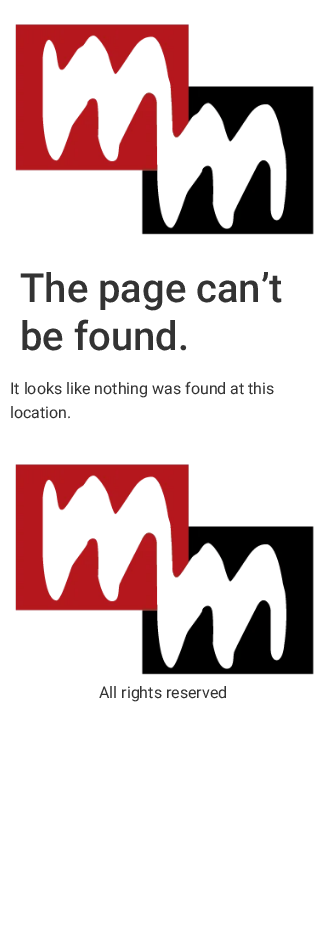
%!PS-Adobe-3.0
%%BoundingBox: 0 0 327 948
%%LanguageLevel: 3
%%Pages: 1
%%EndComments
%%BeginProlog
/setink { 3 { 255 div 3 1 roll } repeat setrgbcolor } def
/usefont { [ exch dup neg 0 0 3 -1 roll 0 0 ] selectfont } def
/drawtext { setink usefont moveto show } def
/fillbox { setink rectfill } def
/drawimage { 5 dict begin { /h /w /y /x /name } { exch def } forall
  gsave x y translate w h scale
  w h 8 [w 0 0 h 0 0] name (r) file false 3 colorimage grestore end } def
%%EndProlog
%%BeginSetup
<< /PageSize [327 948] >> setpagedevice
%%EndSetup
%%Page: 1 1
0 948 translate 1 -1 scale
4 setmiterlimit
0 0 327 948 255 255 255 fillbox
(assets/img1.rgb) 15 24 299 211 drawimage
(The page can’t) 20 302 /Roboto-Medium 40 51 51 51 drawtext
(be found.) 20 350 /Roboto-Medium 40 51 51 51 drawtext
(It looks like nothing was found at this) 10 394 /Roboto-Regular 16 51 51 51 drawtext
(location.) 10 418 /Roboto-Regular 16 51 51 51 drawtext
(assets/img1.rgb) 15 464 299 211 drawimage
(All rights reserved) 99 698 /Roboto-Regular 16 51 51 51 drawtext
showpage
%%EOF
